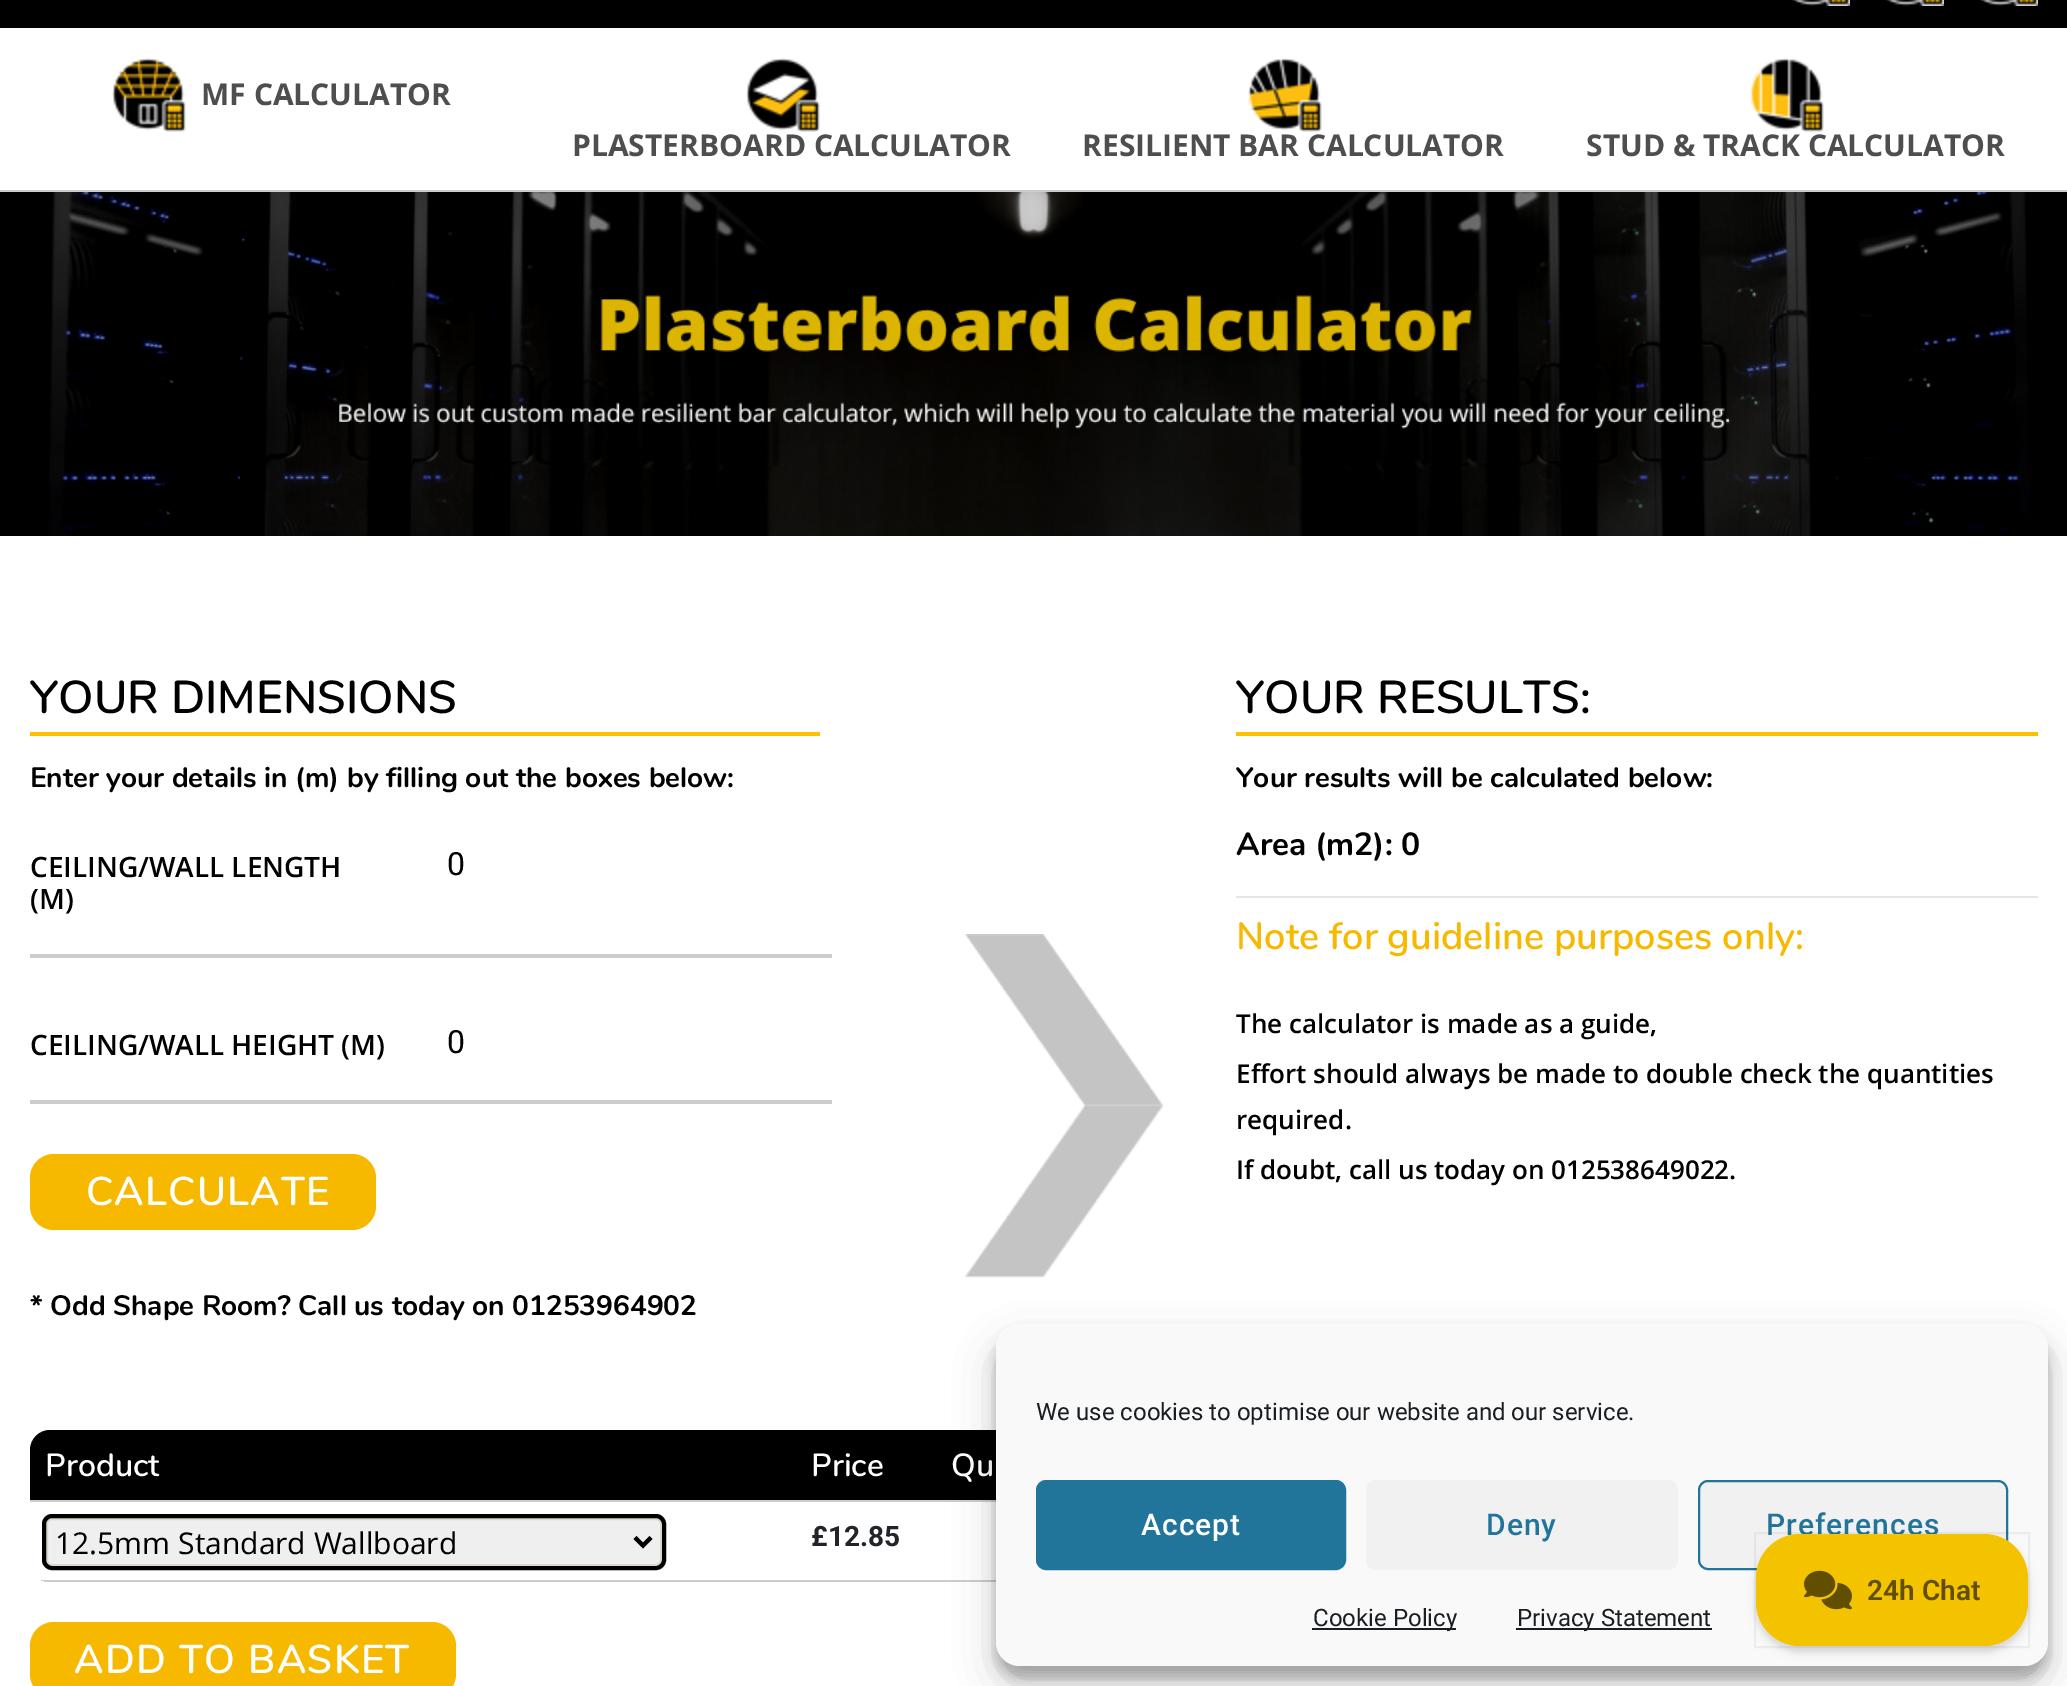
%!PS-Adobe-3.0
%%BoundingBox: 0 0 2067 1686
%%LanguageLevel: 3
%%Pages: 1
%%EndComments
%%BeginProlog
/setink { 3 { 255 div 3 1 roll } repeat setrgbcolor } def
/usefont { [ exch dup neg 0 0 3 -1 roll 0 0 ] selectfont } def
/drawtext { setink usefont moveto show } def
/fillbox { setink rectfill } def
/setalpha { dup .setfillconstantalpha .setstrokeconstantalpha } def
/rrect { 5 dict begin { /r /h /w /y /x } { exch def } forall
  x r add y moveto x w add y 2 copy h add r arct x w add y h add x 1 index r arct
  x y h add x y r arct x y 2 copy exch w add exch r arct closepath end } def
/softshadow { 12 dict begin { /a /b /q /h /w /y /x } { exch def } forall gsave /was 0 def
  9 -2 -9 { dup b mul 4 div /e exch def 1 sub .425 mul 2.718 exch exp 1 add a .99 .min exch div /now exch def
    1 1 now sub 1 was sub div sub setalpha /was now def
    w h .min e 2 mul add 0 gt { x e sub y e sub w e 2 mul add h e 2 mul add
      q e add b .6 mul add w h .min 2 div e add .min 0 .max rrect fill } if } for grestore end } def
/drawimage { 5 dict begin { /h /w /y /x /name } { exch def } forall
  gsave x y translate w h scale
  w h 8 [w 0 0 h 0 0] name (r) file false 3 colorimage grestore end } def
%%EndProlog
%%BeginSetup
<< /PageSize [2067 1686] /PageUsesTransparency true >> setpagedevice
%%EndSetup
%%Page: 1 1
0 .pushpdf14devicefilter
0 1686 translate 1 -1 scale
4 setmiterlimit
0 0 2067 1686 255 255 255 fillbox
0 0 2067 28 0 0 0 fillbox
(assets/img1.rgb) 1792 0 58 6 drawimage
(assets/img2.rgb) 1886 0 58 6 drawimage
(assets/img3.rgb) 1980 0 58 6 drawimage
0 190 2067 2 204 204 204 fillbox
(assets/img4.rgb) 112 58 74 74 drawimage
(MF CALCULATOR) 201 105 /OpenSans-Bold 30 78 78 78 drawtext
(assets/img5.rgb) 746 58 74 74 drawimage
(PLASTERBOARD CALCULATOR) 572 156 /OpenSans-Bold 30 78 78 78 drawtext
(assets/img6.rgb) 1248 58 74 74 drawimage
(RESILIENT BAR CALCULATOR) 1082 156 /OpenSans-Bold 30 78 78 78 drawtext
(assets/img7.rgb) 1750 58 74 74 drawimage
(STUD & TRACK CALCULATOR) 1586 156 /OpenSans-Bold 30 78 78 78 drawtext
(assets/img8.rgb) 0 192 2067 344 drawimage
30 732 790 4 255 192 0 fillbox
(YOUR DIMENSIONS) 30 713 /Nunito-SemiBold 46 0 0 0 drawtext
(Enter your details in \(m\) by filling out the boxes below:) 30 787 /Nunito-Bold 28 0 0 0 drawtext
30 954 802 4 204 204 204 fillbox
(CEILING/WALL LENGTH) 30 877 /OpenSans-SemiBold 28 0 0 0 drawtext
(\(M\)) 30 909 /OpenSans-SemiBold 28 0 0 0 drawtext
(0) 447 875 /Roboto-Regular 32 0 0 0 drawtext
30 1100 802 4 204 204 204 fillbox
(CEILING/WALL HEIGHT \(M\)) 30 1055 /OpenSans-SemiBold 28 0 0 0 drawtext
(0) 447 1053 /Roboto-Regular 32 0 0 0 drawtext
246 185 0 setink
30 1154 346 76 24 rrect fill
/Nunito-SemiBold 40 usefont
255 255 255 setink
86 1205 moveto 1.3 0 (CALCULATE) ashow
(assets/img9.rgb) 964 934 200 344 drawimage
(* Odd Shape Room? Call us today on 01253964902) 30 1315 /Nunito-Bold 28 0 0 0 drawtext
50 1430 moveto 1156 1430 lineto 1167 1430 1176 1439 1176 1450 curveto 1176 1502 lineto 30 1502 lineto 30 1450 lineto 30 1439 39 1430 50 1430 curveto closepath fill
(Product) 45 1476 /Nunito-SemiBold 32 255 255 255 drawtext
(Price) 811 1476 /Nunito-SemiBold 32 255 255 255 drawtext
30 1500 966 2 204 204 204 fillbox
(Qu) 951 1476 /Nunito-SemiBold 32 255 255 255 drawtext
796 1580 200 2 204 204 204 fillbox
gsave
30 1430 1146 152 20 rrect clip newpath
41 1580 757 2 204 204 204 fillbox
grestore
239 239 239 setink
47 1519 614 46 5 rrect gsave fill grestore
220 215 202 setink
2 setlinewidth
stroke
0 0 0 setink
4 setlinewidth
635 1537.5 moveto 643 1545.5 lineto 651 1537.5 lineto stroke
44 1516 620 52 8 rrect stroke
(12.5mm Standard Wallboard) 55 1554 /OpenSans-Regular 30 0 0 0 drawtext
(£12.85) 811 1546 /Roboto-Bold 28 33 37 41 drawtext
246 185 0 setink
30 1622 426 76 24 rrect fill
/Nunito-SemiBold 40 usefont
255 255 255 setink
74 1673 moveto 1.3 0 (ADD TO BASKET) ashow
1236 732 802 4 255 192 0 fillbox
(YOUR RESULTS:) 1236 713 /Nunito-SemiBold 46 0 0 0 drawtext
(Your results will be calculated below:) 1236 787 /Nunito-Bold 28 0 0 0 drawtext
(Area \(m2\): 0) 1236 855 /Nunito-Bold 32 0 0 0 drawtext
1236 896 802 2 230 230 230 fillbox
(Note for guideline purposes only:) 1236 949 /Nunito-SemiBold 38 246 185 0 drawtext
(The calculator is made as a guide,) 1236 1033 /OpenSans-SemiBold 26 0 0 0 drawtext
(Effort should always be made to double check the quantities) 1236 1083 /OpenSans-SemiBold 26 0 0 0 drawtext
(required.) 1236 1129 /OpenSans-SemiBold 26 0 0 0 drawtext
(If doubt, call us today on 012538649022.) 1236 1179 /OpenSans-SemiBold 26 0 0 0 drawtext
996 1336 1052 342 24 6 0.23 softshadow
996 1344 1052 342 24 20 0.19 softshadow
249 249 249 setink
996 1324 1052 342 24 rrect fill
(We use cookies to optimise our website and our service.) 1036 1420 /Roboto-Regular 24 25 30 35 drawtext
33 117 155 setink
1037 1481 308 88 9 rrect gsave fill grestore
2 setlinewidth
stroke
/Roboto-Medium 30 usefont
255 255 255 setink
1141 1535 moveto 1 0 (Accept) ashow
241 241 241 setink
1366 1480 312 90 10 rrect fill
33 117 155 setink
1486 1535 moveto 1 0 (Deny) ashow
241 241 241 setink
1699 1481 308 88 9 rrect gsave fill grestore
33 117 155 setink
stroke
1766 1535 moveto 1 0 (Preferences) ashow
1312 1628 144 2 25 30 35 fillbox
(Cookie Policy) 1313 1626 /Roboto-Regular 24 25 30 35 drawtext
1516 1628 196 2 25 30 35 fillbox
(Privacy Statement) 1517 1626 /Roboto-Regular 24 25 30 35 drawtext
0 0 0 setink
1756 1540 272 112 44 3 0.05 softshadow
1756 1540 272 112 44 5 0.1 softshadow
0.05 setalpha
1755 1533 274 114 rectstroke
1 setalpha
244 195 0 setink
1756 1534 272 112 44 rrect fill
(assets/img10.rgb) 1804 1570 48 40 drawimage
(24h Chat) 1867 1600 /Roboto-SemiBold 28 97 78 0 drawtext
.poppdf14devicefilter showpage
%%EOF
